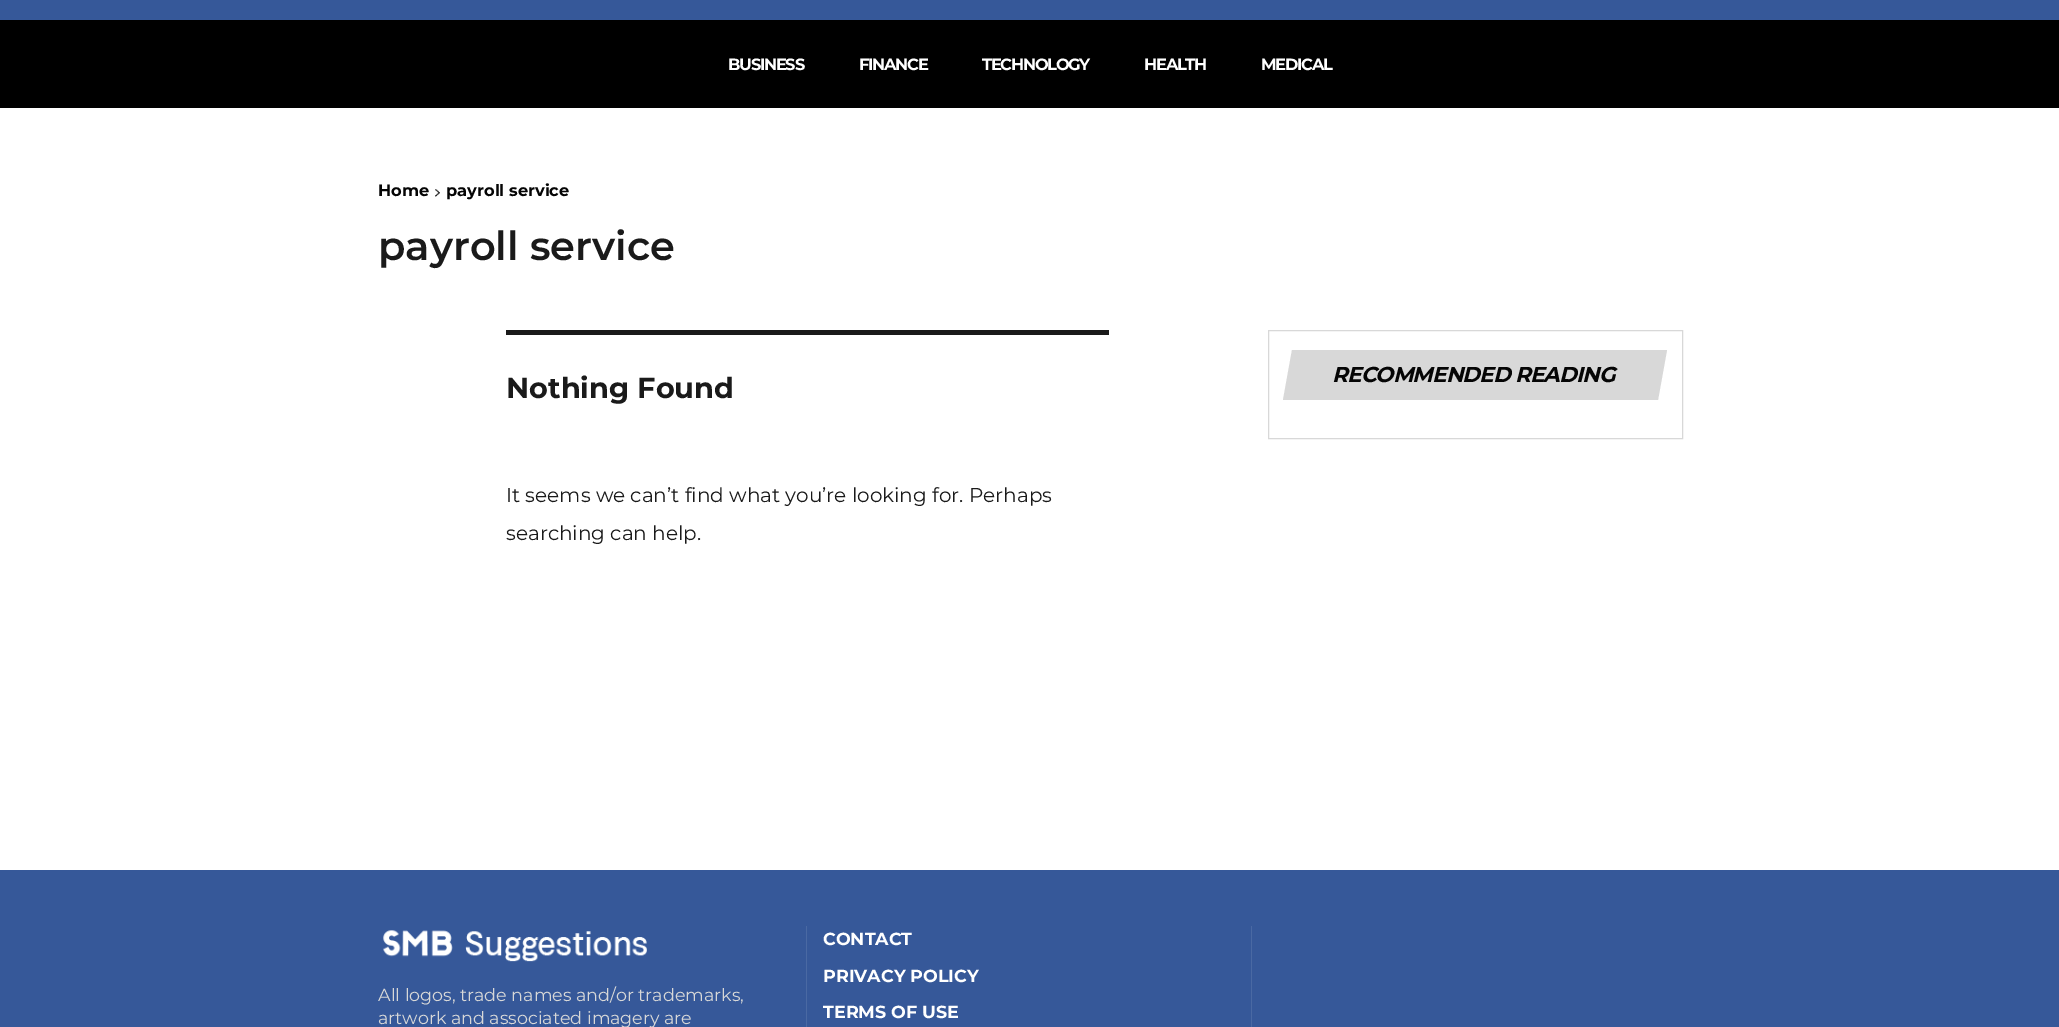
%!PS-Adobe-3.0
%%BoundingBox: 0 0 2059 1027
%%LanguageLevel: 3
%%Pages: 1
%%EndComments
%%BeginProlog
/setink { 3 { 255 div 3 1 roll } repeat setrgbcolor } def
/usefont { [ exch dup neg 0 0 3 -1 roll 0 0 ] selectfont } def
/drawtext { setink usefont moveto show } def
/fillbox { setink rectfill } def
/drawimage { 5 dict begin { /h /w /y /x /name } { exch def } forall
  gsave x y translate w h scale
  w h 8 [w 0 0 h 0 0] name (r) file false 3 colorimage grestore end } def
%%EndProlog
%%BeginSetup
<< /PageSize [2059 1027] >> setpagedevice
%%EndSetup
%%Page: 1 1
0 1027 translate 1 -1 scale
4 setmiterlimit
0 0 2059 1027 255 255 255 fillbox
0 0 2059 20 54 88 153 fillbox
0 20 2059 88 0 0 0 fillbox
/Montserrat-Bold 16.25 usefont
255 255 255 setink
728 70 moveto -1.25 0 (BUSINESS) ashow
859 70 moveto -1.25 0 (FINANCE) ashow
982 70 moveto -1.25 0 (TECHNOLOGY) ashow
1144 70 moveto -1.25 0 (HEALTH) ashow
1261 70 moveto -1.25 0 (MEDICAL) ashow
(Home) 378 196 /Montserrat-Bold 16.25 5 5 5 drawtext
(assets/img1.rgb) 435 189 5 8 drawimage
(payroll service) 446 196 /Montserrat-Bold 16.25 5 5 5 drawtext
(payroll service) 378 260 /Montserrat-SemiBold 40 26 26 26 drawtext
506 330 603 5 26 26 26 fillbox
(Nothing Found) 506 398 /Montserrat-Bold 28.75 26 26 26 drawtext
(It seems we can’t find what you’re looking for. Perhaps) 506 502 /Montserrat-Regular 20 26 26 26 drawtext
(searching can help.) 506 540 /Montserrat-Regular 20 26 26 26 drawtext
216 216 216 setink
1268.5 330.5 414 108 rectstroke
1292 350 moveto 1667 350 lineto 1658 400 lineto 1283 400 lineto closepath fill
/Montserrat-BoldItalic 21.6 usefont
5 5 5 setink
1332 382 moveto -0.9 0 (RECOMMENDED READING) ashow
0 870 2059 157 54 88 153 fillbox
806 926 1 101 74 105 163 fillbox
(assets/img2.rgb) 383 930 264 32 drawimage
(All logos, trade names and/or trademarks,) 378 1001 /Montserrat-Regular 17.5 216 216 216 drawtext
(artwork and associated imagery are) 378 1024 /Montserrat-Regular 17.5 216 216 216 drawtext
1251 926 1 101 74 105 163 fillbox
(CONTACT) 823 945 /Montserrat-Bold 17.5 255 255 255 drawtext
(PRIVACY POLICY) 823 982 /Montserrat-Bold 17.5 255 255 255 drawtext
(TERMS OF USE) 823 1018 /Montserrat-Bold 17.5 255 255 255 drawtext
showpage
%%EOF
